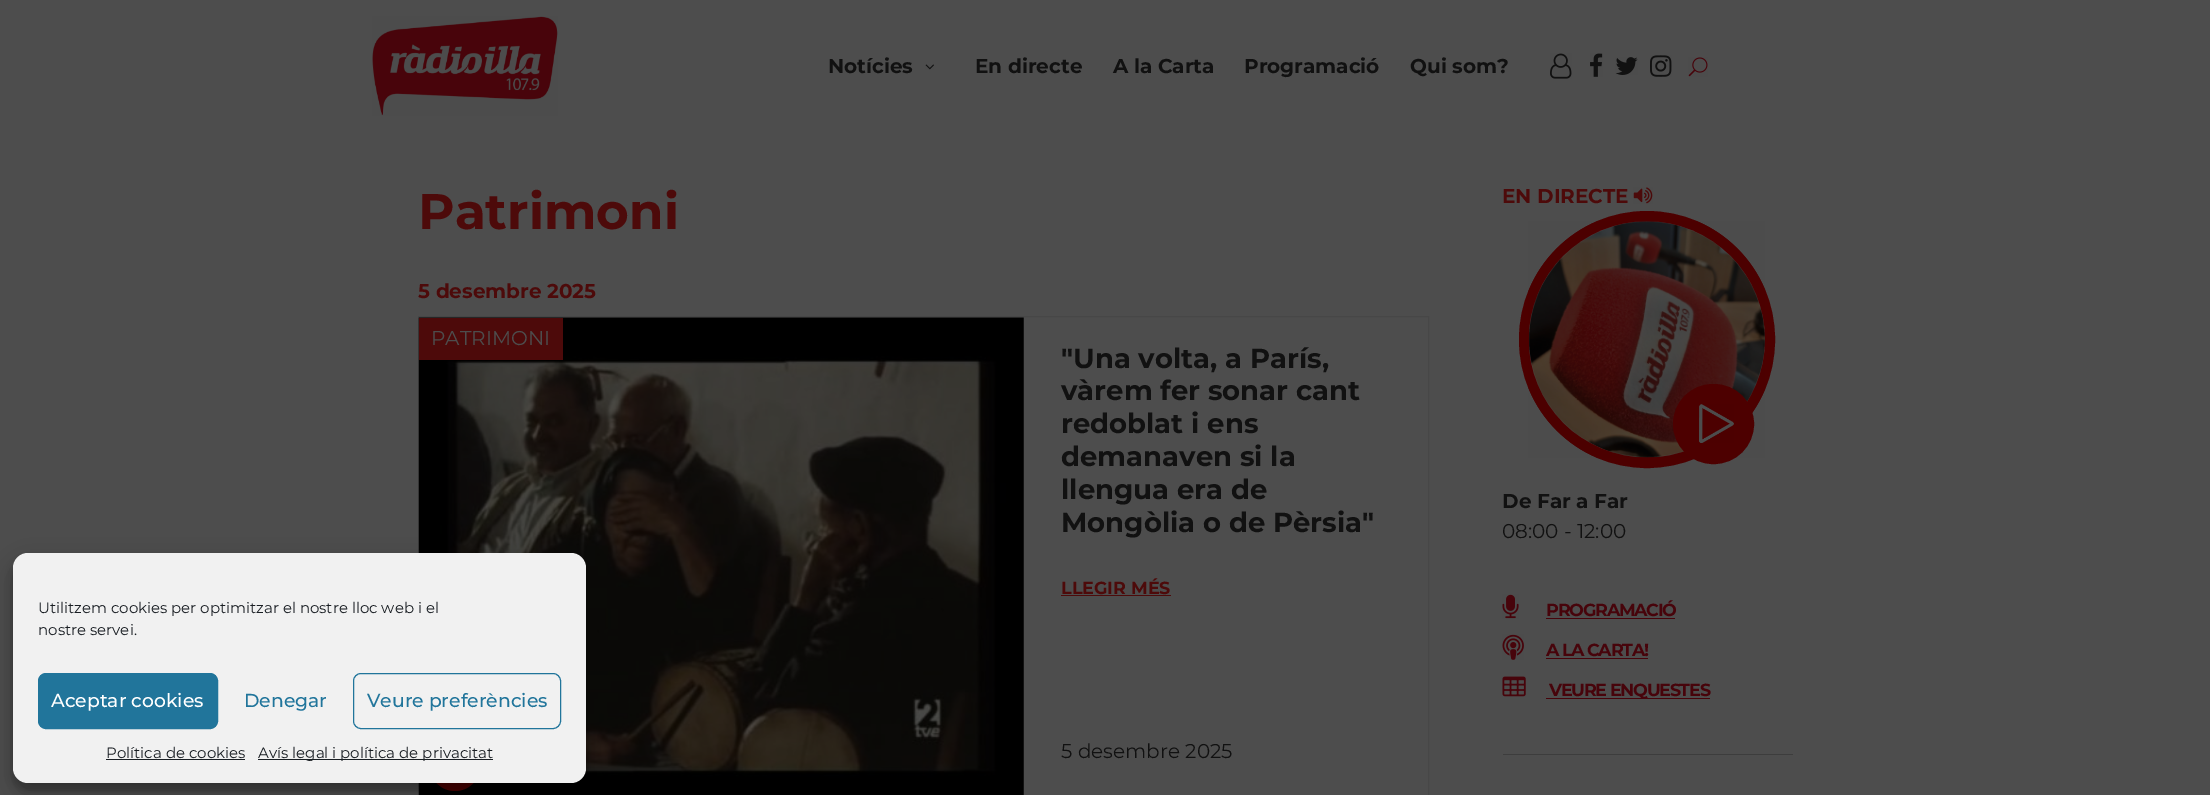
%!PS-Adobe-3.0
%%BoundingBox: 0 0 2210 795
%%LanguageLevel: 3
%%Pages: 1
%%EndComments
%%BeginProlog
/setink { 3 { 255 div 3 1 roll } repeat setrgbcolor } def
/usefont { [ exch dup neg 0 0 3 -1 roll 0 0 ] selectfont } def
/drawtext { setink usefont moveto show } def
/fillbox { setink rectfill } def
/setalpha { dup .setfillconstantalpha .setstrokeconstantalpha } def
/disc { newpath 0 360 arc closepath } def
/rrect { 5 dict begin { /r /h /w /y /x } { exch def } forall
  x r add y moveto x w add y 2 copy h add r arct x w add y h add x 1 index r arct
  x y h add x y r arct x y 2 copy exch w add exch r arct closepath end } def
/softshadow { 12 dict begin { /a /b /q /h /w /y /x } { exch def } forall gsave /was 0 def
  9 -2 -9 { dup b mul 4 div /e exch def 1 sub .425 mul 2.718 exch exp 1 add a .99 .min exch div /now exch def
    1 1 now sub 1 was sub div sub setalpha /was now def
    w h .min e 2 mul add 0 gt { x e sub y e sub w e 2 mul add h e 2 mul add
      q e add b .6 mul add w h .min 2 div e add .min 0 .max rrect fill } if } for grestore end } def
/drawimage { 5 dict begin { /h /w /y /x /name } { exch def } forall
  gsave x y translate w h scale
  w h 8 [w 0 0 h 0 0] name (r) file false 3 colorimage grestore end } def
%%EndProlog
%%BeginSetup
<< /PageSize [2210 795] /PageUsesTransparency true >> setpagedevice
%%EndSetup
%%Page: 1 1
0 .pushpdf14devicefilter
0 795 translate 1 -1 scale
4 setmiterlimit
0 0 2210 795 77 77 77 fillbox
71 71 71 setink
418.5 316.5 1010 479 rectstroke
(assets/img8.rgb) 418 317 606 478 drawimage
77 0 0 setink
455 766 25 disc fill
0 0 0 setink
13 560 573 230 15 4 0.23 softshadow
13 565 573 230 15 12.5 0.19 softshadow
241 241 241 setink
13 553 573 230 15 rrect fill
(Utilitzem cookies per optimitzar el nostre lloc web i el) 38 613 /Montserrat-Regular 15 25 30 35 drawtext
(nostre servei.) 38 635 /Montserrat-Regular 15 25 30 35 drawtext
33 117 155 setink
38.5 673.5 179 55 7.5 rrect gsave fill grestore
stroke
(Aceptar cookies) 51 707 /Montserrat-Medium 18.75 255 255 255 drawtext
(Denegar) 244 707 /Montserrat-Medium 18.75 33 117 155 drawtext
353.5 673.5 207 55 7.5 rrect stroke
(Veure preferències) 367 707 /Montserrat-Medium 18.75 33 117 155 drawtext
(Política de cookies) 106 758 /Montserrat-Regular 15 25 30 35 drawtext
106 759 139 1 25 30 35 fillbox
258 759 235 1 25 30 35 fillbox
(Avís legal i política de privacitat) 258 758 /Montserrat-Regular 15 25 30 35 drawtext
(assets/img1.rgb) 372 16 186 100 drawimage
(Notícies) 828 73 /Montserrat-Bold 20 17 17 17 drawtext
(assets/img2.rgb) 925 64 9 6 drawimage
(En directe) 975 73 /Montserrat-Bold 20 17 17 17 drawtext
(A la Carta) 1113 73 /Montserrat-Bold 20 17 17 17 drawtext
(Programació) 1244 73 /Montserrat-Bold 20 17 17 17 drawtext
(Qui som?) 1410 73 /Montserrat-Bold 20 17 17 17 drawtext
(assets/img3.rgb) 1550 53 22 26 drawimage
(assets/img4.rgb) 1590 53 13 24 drawimage
(assets/img5.rgb) 1615 57 23 18 drawimage
(assets/img6.rgb) 1650 55 22 22 drawimage
(assets/img7.rgb) 1688 57 20 20 drawimage
(Patrimoni) 418 229 /Montserrat-Bold 50 77 10 10 drawtext
(5 desembre 2025) 418 298 /Montserrat-Bold 20 77 10 10 drawtext
419 318 144 42 77 10 10 fillbox
(PATRIMONI) 431 345 /Montserrat-Regular 20 77 77 77 drawtext
("Una volta, a París,) 1061 368 /Montserrat-Bold 27.5 17 17 17 drawtext
(vàrem fer sonar cant) 1061 400 /Montserrat-Bold 27.5 17 17 17 drawtext
(redoblat i ens) 1061 433 /Montserrat-Bold 27.5 17 17 17 drawtext
(demanaven si la) 1061 466 /Montserrat-Bold 27.5 17 17 17 drawtext
(llengua era de) 1061 499 /Montserrat-Bold 27.5 17 17 17 drawtext
(Mongòlia o de Pèrsia") 1061 532 /Montserrat-Bold 27.5 17 17 17 drawtext
(LLEGIR MÉS) 1061 594 /Montserrat-Bold 17.5 77 10 10 drawtext
1061 595 110 1 77 10 10 fillbox
(5 desembre 2025) 1061 758 /Montserrat-Regular 20 17 17 17 drawtext
(EN DIRECTE) 1502 203 /Montserrat-Bold 20 77 10 10 drawtext
(assets/img9.rgb) 1633 187 20 17 drawimage
77 0 0 setink
1521.5 213.5 251 252 125.5 rrect gsave fill grestore
5 setlinewidth
stroke
(assets/img10.rgb) 1528 221 237 237 drawimage
1675.5 386.5 76 75 37.5 rrect gsave fill grestore
stroke
(assets/img11.rgb) 1699 404 35 39 drawimage
(De Far a Far) 1502 508 /Montserrat-Bold 20 17 17 17 drawtext
(08:00 - 12:00) 1502 538 /Montserrat-Regular 20 17 17 17 drawtext
(assets/img12.rgb) 1502 594 17 25 drawimage
/Montserrat-Bold 17.5 usefont
71 4 11 setink
1546 616 moveto -1.25 0 (PROGRAMACIÓ) ashow
1546 618 129 1 71 4 11 fillbox
(assets/img13.rgb) 1502 634 22 26 drawimage
1546 656 moveto -1.25 0 (A LA CARTA!) ashow
1546 658 102 1 71 4 11 fillbox
(assets/img14.rgb) 1502 676 24 21 drawimage
1546 698 164 1 71 4 11 fillbox
1549 696 moveto -1.25 0 (VEURE ENQUESTES) ashow
1503 754 290 1 61 61 61 fillbox
.poppdf14devicefilter showpage
%%EOF
